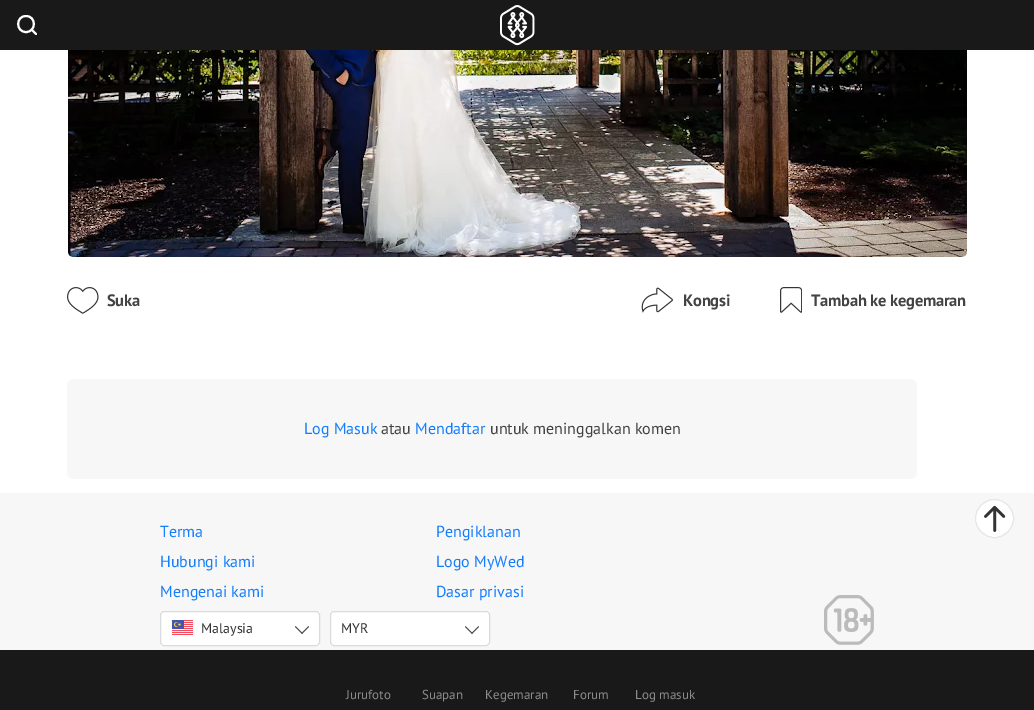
%!PS-Adobe-3.0
%%BoundingBox: 0 0 1034 710
%%LanguageLevel: 3
%%Pages: 1
%%EndComments
%%BeginProlog
/setink { 3 { 255 div 3 1 roll } repeat setrgbcolor } def
/usefont { [ exch dup neg 0 0 3 -1 roll 0 0 ] selectfont } def
/drawtext { setink usefont moveto show } def
/fillbox { setink rectfill } def
/disc { newpath 0 360 arc closepath } def
/rrect { 5 dict begin { /r /h /w /y /x } { exch def } forall
  x r add y moveto x w add y 2 copy h add r arct x w add y h add x 1 index r arct
  x y h add x y r arct x y 2 copy exch w add exch r arct closepath end } def
/drawimage { 5 dict begin { /h /w /y /x /name } { exch def } forall
  gsave x y translate w h scale
  w h 8 [w 0 0 h 0 0] name (r) file false 3 colorimage grestore end } def
%%EndProlog
%%BeginSetup
<< /PageSize [1034 710] >> setpagedevice
%%EndSetup
%%Page: 1 1
0 710 translate 1 -1 scale
4 setmiterlimit
0 0 1034 710 255 255 255 fillbox
0 0 1034 50 25 25 25 fillbox
255 255 255 setink
2 setlinewidth
1 setlinecap
1 setlinejoin
26 32 moveto 36.5 32 36.5 16 26 16 curveto 15.5 16 15.5 32 26 32 curveto closepath 36 34 moveto 31.5 29.5 lineto stroke
(assets/img1.rgb) 500 5 35 41 drawimage
(assets/img2.rgb) 68 50 899 207 drawimage
(assets/img3.rgb) 67 287 32 27 drawimage
/PTSans-Bold 16.5 usefont
67 67 67 setink
107 306 moveto -0.25 0 (Suka) ashow
(assets/img4.rgb) 641 287 32 26 drawimage
683 306 moveto -0.25 0 (Kongsi) ashow
(assets/img5.rgb) 780 287 22 26 drawimage
811 306 moveto -0.25 0 (Tambah ke kegemaran) ashow
247 247 247 setink
67 379 850 100 7 rrect fill
(Log Masuk) 304 434 /PTSans-Regular 16 21 126 251 drawtext
(atau) 381 434 /PTSans-Regular 16 67 67 67 drawtext
(Mendaftar) 415 434 /PTSans-Regular 16 21 126 251 drawtext
(untuk meninggalkan komen) 490 434 /PTSans-Regular 16 67 67 67 drawtext
0 493 1034 157 247 247 247 fillbox
255 255 255 setink
994.5 518.5 19 disc gsave fill grestore
230 230 230 setink
1 setlinewidth
0 setlinecap
0 setlinejoin
stroke
(assets/img6.rgb) 984 505 22 27 drawimage
(Terma) 160 537 /PTSans-Regular 16 21 126 251 drawtext
(Pengiklanan) 436 537 /PTSans-Regular 16 21 126 251 drawtext
(Hubungi kami) 160 567 /PTSans-Regular 16 21 126 251 drawtext
(Logo MyWed) 436 567 /PTSans-Regular 16 21 126 251 drawtext
(Mengenai kami) 160 597 /PTSans-Regular 16 21 126 251 drawtext
(Dasar privasi) 436 597 /PTSans-Regular 16 21 126 251 drawtext
160 611 160 35 255 255 255 fillbox
219 219 219 setink
160.5 611.5 159 34 3.5 rrect stroke
(assets/img7.rgb) 172 620 21 15 drawimage
(Malaysia) 201 633 /PTSans-Regular 14 52 52 52 drawtext
78 78 78 setink
301.5 633 moveto 308.5 626 lineto 309 627 lineto 302 634 lineto closepath fill
295 627 moveto 295.5 626 lineto 302.5 633 lineto 302 634 lineto closepath fill
330 611 160 35 255 255 255 fillbox
219 219 219 setink
330.5 611.5 159 34 3.5 rrect stroke
(MYR) 341 633 /PTSans-Regular 14 52 52 52 drawtext
78 78 78 setink
471.5 633 moveto 478.5 626 lineto 479 627 lineto 472 634 lineto closepath fill
465 627 moveto 465.5 626 lineto 472.5 633 lineto 472 634 lineto closepath fill
(assets/img8.rgb) 824 595 50 50 drawimage
0 650 1034 60 25 25 25 fillbox
(Jurufoto) 346 699 /PTSans-Regular 13 140 140 140 drawtext
(Suapan) 422 699 /PTSans-Regular 13 140 140 140 drawtext
(Kegemaran) 485 699 /PTSans-Regular 13 140 140 140 drawtext
(Forum) 573 699 /PTSans-Regular 13 140 140 140 drawtext
(Log masuk) 635 699 /PTSans-Regular 13 140 140 140 drawtext
showpage
%%EOF
